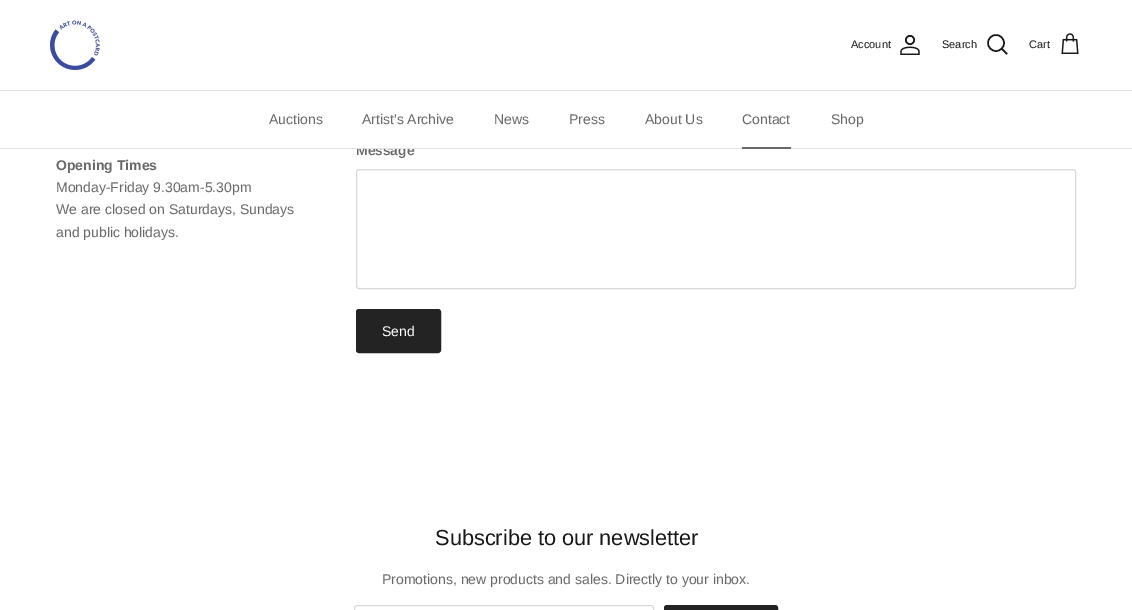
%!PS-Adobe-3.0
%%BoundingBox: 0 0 1132 610
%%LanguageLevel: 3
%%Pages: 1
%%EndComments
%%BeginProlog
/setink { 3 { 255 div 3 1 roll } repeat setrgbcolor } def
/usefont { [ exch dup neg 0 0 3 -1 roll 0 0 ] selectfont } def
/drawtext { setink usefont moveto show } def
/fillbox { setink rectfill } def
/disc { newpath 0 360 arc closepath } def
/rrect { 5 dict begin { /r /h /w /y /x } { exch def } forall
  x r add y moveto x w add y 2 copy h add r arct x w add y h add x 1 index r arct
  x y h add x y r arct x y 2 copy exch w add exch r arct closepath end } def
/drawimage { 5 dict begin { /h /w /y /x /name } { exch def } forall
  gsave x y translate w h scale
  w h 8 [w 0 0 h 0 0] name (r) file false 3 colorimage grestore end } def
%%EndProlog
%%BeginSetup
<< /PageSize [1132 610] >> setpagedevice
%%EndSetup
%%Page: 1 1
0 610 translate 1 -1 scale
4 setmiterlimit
0 0 1132 610 255 255 255 fillbox
0 90 1132 1 226 226 226 fillbox
(assets/img1.rgb) 50 20 50 50 drawimage
(Account) 851 48 /Arimo-Regular 11 23 23 23 drawtext
(assets/img2.rgb) 900 35 20 20 drawimage
(Search) 942 48 /Arimo-Regular 11 23 23 23 drawtext
1.5 setlinewidth
996 43 8 disc stroke
2 setlinecap
1002 49 moveto 1006.5 53.5 lineto stroke
(Cart) 1029 48 /Arimo-Regular 11 23 23 23 drawtext
(assets/img3.rgb) 1061 33 18 21 drawimage
(Message) 356 155 /Arimo-SemiBold 14 103 104 105 drawtext
0 148 1132 1 226 226 226 fillbox
357 145 56 3 255 255 255 fillbox
(Auctions) 269 124 /Arimo-Regular 14 103 104 105 drawtext
(Artist's Archive) 362 124 /Arimo-Regular 14 103 104 105 drawtext
(News) 494 124 /Arimo-Regular 14 103 104 105 drawtext
(Press) 569 124 /Arimo-Regular 14 103 104 105 drawtext
(About Us) 645 124 /Arimo-Regular 14 103 104 105 drawtext
(Contact) 742 124 /Arimo-Regular 14 103 104 105 drawtext
742 147 49 2 103 104 105 fillbox
(Shop) 831 124 /Arimo-Regular 14 103 104 105 drawtext
(Opening Times) 56 170 /Arimo-Bold 14 103 104 105 drawtext
(Monday-Friday 9.30am-5.30pm) 56 192 /Arimo-Regular 14 103 104 105 drawtext
(We are closed on Saturdays, Sundays) 56 214 /Arimo-Regular 14 103 104 105 drawtext
(and public holidays.) 56 237 /Arimo-Regular 14 103 104 105 drawtext
217 217 218 setink
1 setlinewidth
0 setlinecap
356.5 169.5 719 119 2.5 rrect stroke
35 35 35 setink
356.5 309.5 84 43 2.5 rrect gsave fill grestore
stroke
(Send) 382 336 /Arimo-Regular 14 255 255 255 drawtext
(Subscribe to our newsletter) 435 545 /Arimo-Regular 21.75 23 23 23 drawtext
(Promotions, new products and sales. Directly to your inbox.) 382 584 /Arimo-Regular 14 103 104 105 drawtext
217 217 218 setink
354.5 605.5 299 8 2.5 rrect stroke
35 35 35 setink
664.5 605.5 113 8 2.5 rrect gsave fill grestore
stroke
showpage
%%EOF
